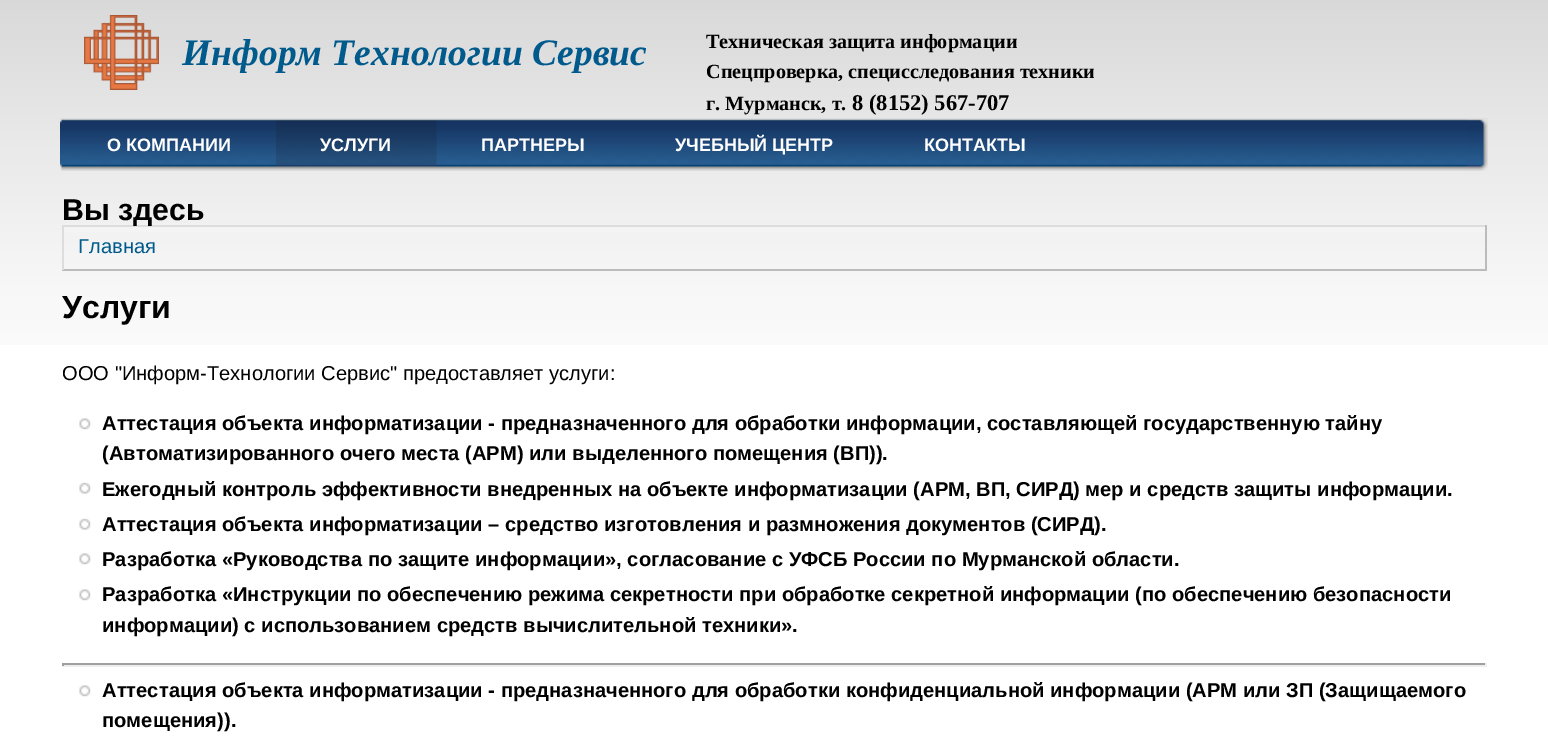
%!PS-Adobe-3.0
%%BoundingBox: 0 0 1548 743
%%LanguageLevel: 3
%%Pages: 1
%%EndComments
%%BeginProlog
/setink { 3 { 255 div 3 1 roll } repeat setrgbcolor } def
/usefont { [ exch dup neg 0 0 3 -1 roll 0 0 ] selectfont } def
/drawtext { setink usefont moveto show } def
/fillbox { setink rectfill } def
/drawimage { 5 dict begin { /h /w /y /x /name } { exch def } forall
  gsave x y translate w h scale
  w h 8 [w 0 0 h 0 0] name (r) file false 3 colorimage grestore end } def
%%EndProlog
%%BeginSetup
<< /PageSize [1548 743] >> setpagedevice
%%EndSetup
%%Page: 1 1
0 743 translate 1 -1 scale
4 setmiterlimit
0 0 1548 743 255 255 255 fillbox
(assets/img1.rgb) 0 0 1548 345 drawimage
(assets/img2.rgb) 84 15 75 75 drawimage
(Информ Технологии Сервис) 182 65 /LiberationSerif-BoldItalic 37.5 0 90 140 drawtext
(Техническая защита информации) 706 48 /LiberationSerif-Bold 20.15 0 0 0 drawtext
(Спецпроверка, специсследования техники) 706 78 /LiberationSerif-Bold 20.15 0 0 0 drawtext
(г. Мурманск, т.) 706 110 /LiberationSerif-Bold 20.15 0 0 0 drawtext
(8 \(8152\) 567-707) 852 110 /LiberationSerif-Bold 22.5 0 0 0 drawtext
(assets/img3.rgb) 60 118 1428 53 drawimage
(assets/img4.rgb) 60 119 2 52 drawimage
(О КОМПАНИИ) 107 151 /LiberationSans-Bold 18 255 255 255 drawtext
(assets/img5.rgb) 276 120 161 47 drawimage
(УСЛУГИ) 320 151 /LiberationSans-Bold 18 255 255 255 drawtext
(ПАРТНЕРЫ) 481 151 /LiberationSans-Bold 18 255 255 255 drawtext
(УЧЕБНЫЙ ЦЕНТР) 675 151 /LiberationSans-Bold 18 255 255 255 drawtext
(КОНТАКТЫ) 924 151 /LiberationSans-Bold 18 255 255 255 drawtext
(assets/img6.rgb) 1467 119 21 52 drawimage
62 225 1425 2 221 221 221 fillbox
1485 225 2 45 187 187 187 fillbox
62 269 1425 2 187 187 187 fillbox
62 225 2 45 221 221 221 fillbox
(Вы здесь) 62 220 /LiberationSans-Bold 30.25 0 0 0 drawtext
64 227 1421 5 244 244 244 fillbox
(Главная) 78 253 /LiberationSans-Regular 20.15 0 90 140 drawtext
(Услуги) 62 318 /LiberationSans-Bold 32 0 0 0 drawtext
(ООО "Информ-Технологии Сервис" предоставляет услуги:) 62 380 /LiberationSans-Regular 20.15 0 0 0 drawtext
(assets/img7.rgb) 79 418 12 12 drawimage
(Аттестация объекта информатизации - предназначенного для обработки информации, составляющей государственную тайну) 102 430 /LiberationSans-Bold 20.15 0 0 0 drawtext
(\(Автоматизированного очего места \(АРМ\) или выделенного помещения \(ВП\)\).) 102 460 /LiberationSans-Bold 20.15 0 0 0 drawtext
(assets/img8.rgb) 79 482 12 12 drawimage
(Ежегодный контроль эффективности внедренных на объекте информатизации \(АРМ, ВП, СИРД\) мер и средств защиты информации.) 102 496 /LiberationSans-Bold 20.15 0 0 0 drawtext
(assets/img8.rgb) 79 518 12 12 drawimage
(Аттестация объекта информатизации – средство изготовления и размножения документов \(СИРД\).) 102 531 /LiberationSans-Bold 20.15 0 0 0 drawtext
(assets/img7.rgb) 79 553 12 12 drawimage
(Разработка «Руководства по защите информации», согласование с УФСБ России по Мурманской области.) 102 566 /LiberationSans-Bold 20.15 0 0 0 drawtext
(assets/img7.rgb) 79 589 12 12 drawimage
(Разработка «Инструкции по обеспечению режима секретности при обработке секретной информации \(по обеспечению безопасности) 102 601 /LiberationSans-Bold 20.15 0 0 0 drawtext
(информации\) с использованием средств вычислительной техники».) 102 632 /LiberationSans-Bold 20.15 0 0 0 drawtext
62 663 1425 2 159 159 159 fillbox
1485 663 2 3 238 238 238 fillbox
62 665 1425 2 238 238 238 fillbox
62 663 2 3 159 159 159 fillbox
(assets/img7.rgb) 79 685 12 12 drawimage
(Аттестация объекта информатизации - предназначенного для обработки конфиденциальной информации \(АРМ или ЗП \(Защищаемого) 102 697 /LiberationSans-Bold 20.15 0 0 0 drawtext
(помещения\)\).) 102 727 /LiberationSans-Bold 20.15 0 0 0 drawtext
showpage
%%EOF
